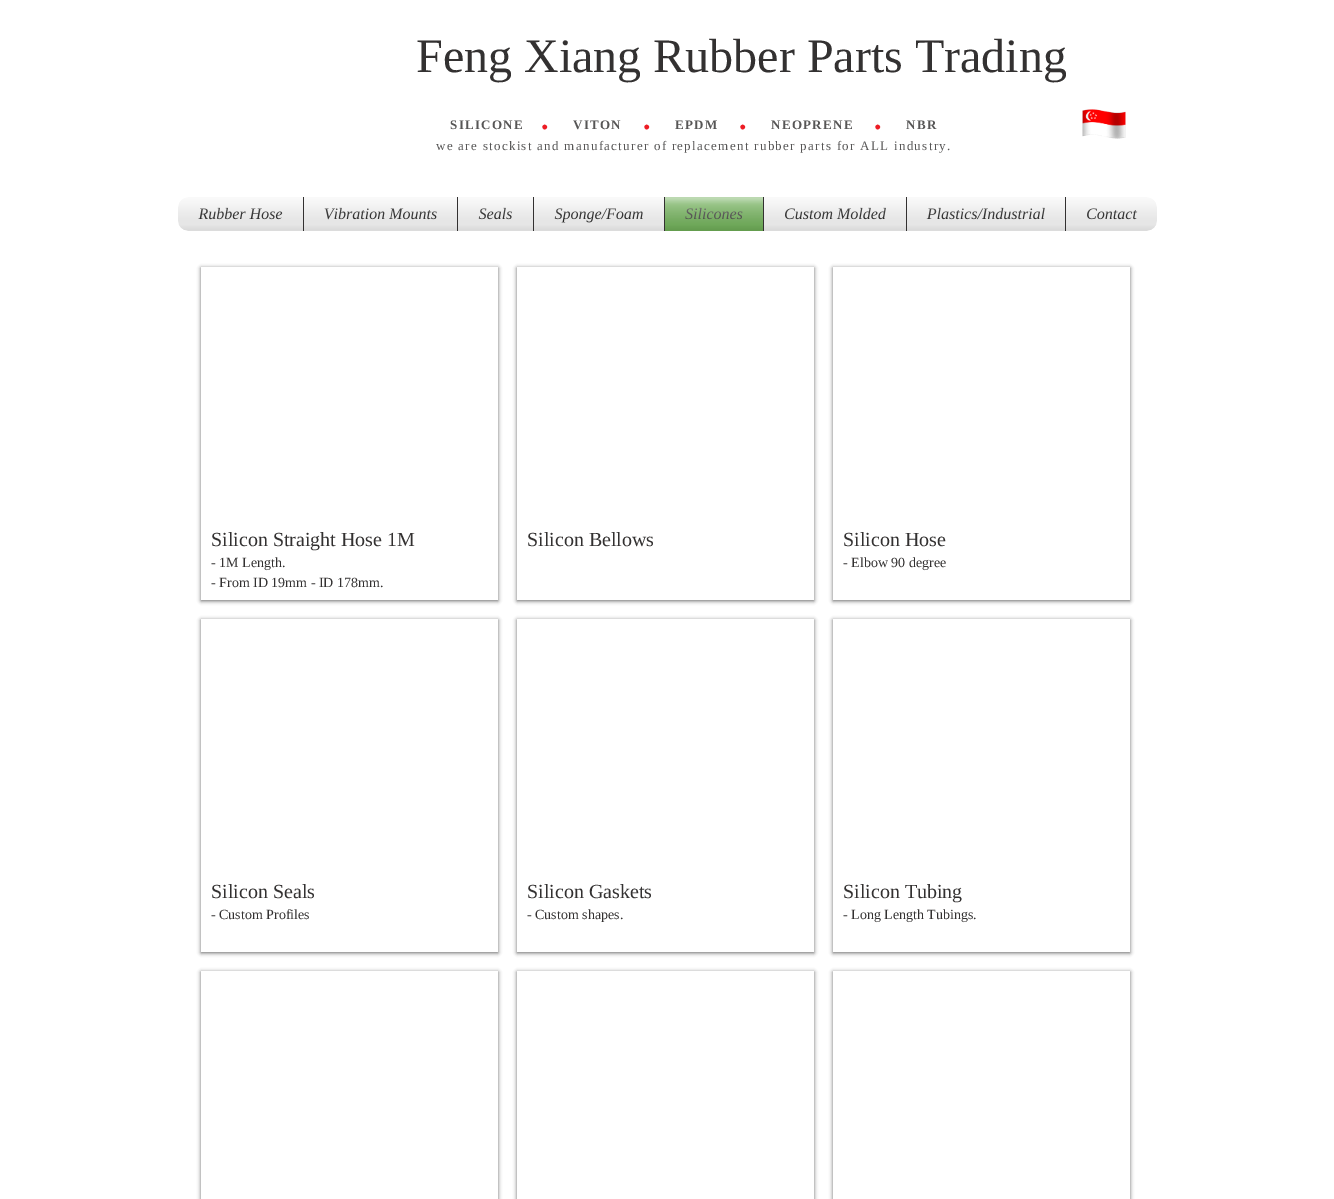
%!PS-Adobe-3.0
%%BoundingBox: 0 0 1334 1199
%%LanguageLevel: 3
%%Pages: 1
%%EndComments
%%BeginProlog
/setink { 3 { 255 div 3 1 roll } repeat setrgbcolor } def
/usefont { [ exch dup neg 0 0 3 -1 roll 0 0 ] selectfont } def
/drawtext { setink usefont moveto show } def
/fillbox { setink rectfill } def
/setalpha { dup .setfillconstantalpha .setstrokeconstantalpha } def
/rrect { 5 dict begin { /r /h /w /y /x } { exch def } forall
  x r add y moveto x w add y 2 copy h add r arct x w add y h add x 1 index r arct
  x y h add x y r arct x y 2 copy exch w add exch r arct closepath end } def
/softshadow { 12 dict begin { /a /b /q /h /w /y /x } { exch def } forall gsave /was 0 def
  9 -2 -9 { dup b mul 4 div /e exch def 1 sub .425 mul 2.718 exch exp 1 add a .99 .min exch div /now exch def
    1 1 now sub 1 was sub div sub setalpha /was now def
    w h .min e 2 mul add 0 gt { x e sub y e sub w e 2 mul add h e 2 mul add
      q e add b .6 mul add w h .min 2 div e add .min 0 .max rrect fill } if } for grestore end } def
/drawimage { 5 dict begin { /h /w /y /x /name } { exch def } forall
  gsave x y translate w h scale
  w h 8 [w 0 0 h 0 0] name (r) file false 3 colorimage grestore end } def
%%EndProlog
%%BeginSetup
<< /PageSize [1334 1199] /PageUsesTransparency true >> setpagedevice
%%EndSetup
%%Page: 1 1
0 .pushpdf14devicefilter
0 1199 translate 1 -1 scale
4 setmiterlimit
0 0 1334 1199 255 255 255 fillbox
(Feng Xiang Rubber Parts Trading) 416 72 /LiberationSerif-Regular 48 51 49 49 drawtext
/LiberationSerif-Bold 13 usefont
87 86 86 setink
450 129 moveto 1.3 0 (SILICONE) ashow
/LiberationSerif-Bold 30 usefont
237 28 36 setink
541 129 moveto 3 0 (.) ashow
/LiberationSerif-Bold 13 usefont
87 86 86 setink
573 129 moveto 1.3 0 (VITON) ashow
/LiberationSerif-Bold 30 usefont
237 28 36 setink
643 129 moveto 3 0 (.) ashow
/LiberationSerif-Bold 13 usefont
87 86 86 setink
675 129 moveto 1.3 0 (EPDM) ashow
/LiberationSerif-Bold 30 usefont
237 28 36 setink
739 129 moveto 3 0 (.) ashow
/LiberationSerif-Bold 13 usefont
87 86 86 setink
771 129 moveto 1.3 0 (NEOPRENE) ashow
/LiberationSerif-Bold 30 usefont
237 28 36 setink
874 129 moveto 3 0 (.) ashow
/LiberationSerif-Bold 13 usefont
87 86 86 setink
906 129 moveto 1.3 0 (NBR) ashow
/LiberationSerif-Regular 13 usefont
436 150 moveto 1.3 0 (we are stockist and manufacturer of replacement rubber parts for ALL industry.) ashow
(assets/img1.rgb) 1082 109 44 30 drawimage
(assets/img2.rgb) 178 206 979 25 drawimage
255 255 255 setink
188 197 moveto 303 197 lineto 303 231 lineto 188 231 lineto 182.5 231 178 226.5 178 221 curveto 178 207 lineto 178 201.5 182.5 197 188 197 curveto closepath fill
(Rubber Hose) 199 219 /LiberationSerif-Italic 16 0 0 0 drawtext
(assets/img3.rgb) 198 207 84 13 drawimage
(assets/img4.rgb) 178 197 125 34 drawimage
304 206 153 25 255 255 255 fillbox
303 197 1 34 51 49 49 fillbox
(Vibration Mounts) 324 219 /LiberationSerif-Italic 16 0 0 0 drawtext
(assets/img5.rgb) 324 207 113 13 drawimage
(assets/img6.rgb) 304 197 153 34 drawimage
458 206 75 25 255 255 255 fillbox
457 197 1 34 51 49 49 fillbox
(Seals) 479 219 /LiberationSerif-Italic 16 0 0 0 drawtext
(assets/img7.rgb) 479 207 33 13 drawimage
(assets/img8.rgb) 458 197 75 34 drawimage
534 206 130 25 255 255 255 fillbox
533 197 1 34 51 49 49 fillbox
(Sponge/Foam) 555 219 /LiberationSerif-Italic 16 0 0 0 drawtext
(assets/img9.rgb) 554 208 89 15 drawimage
(assets/img10.rgb) 534 197 130 34 drawimage
665 197 98 34 104 176 77 fillbox
664 197 1 34 51 49 49 fillbox
(Silicones) 685 219 /LiberationSerif-Italic 16 51 49 49 drawtext
(assets/img11.rgb) 665 197 98 34 drawimage
(assets/img12.rgb) 665 197 98 34 drawimage
764 206 142 25 255 255 255 fillbox
763 197 1 34 51 49 49 fillbox
(Custom Molded) 784 219 /LiberationSerif-Italic 16 0 0 0 drawtext
(assets/img13.rgb) 785 207 101 13 drawimage
(assets/img14.rgb) 764 197 142 34 drawimage
907 206 158 25 255 255 255 fillbox
906 197 1 34 51 49 49 fillbox
(Plastics/Industrial) 927 219 /LiberationSerif-Italic 16 0 0 0 drawtext
(assets/img15.rgb) 927 207 118 13 drawimage
(assets/img16.rgb) 907 197 158 34 drawimage
255 255 255 setink
1065 197 moveto 1147 197 lineto 1152.5 197 1157 201.5 1157 207 curveto 1157 221 lineto 1157 226.5 1152.5 231 1147 231 curveto 1065 231 lineto closepath fill
1065 197 1 34 51 49 49 fillbox
(Contact) 1086 219 /LiberationSerif-Italic 16 0 0 0 drawtext
(assets/img17.rgb) 1087 208 50 12 drawimage
(assets/img18.rgb) 1066 197 91 34 drawimage
gsave
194 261 moveto 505 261 lineto 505 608 lineto 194 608 lineto closepath 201 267 moveto 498 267 lineto 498 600 lineto 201 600 lineto closepath eoclip newpath
201 268 297 333 0 2 0.6 softshadow
grestore
(Silicon Straight Hose 1M) 211 546 /LiberationSerif-Regular 20 51 49 49 drawtext
(- 1M Length.) 211 567 /LiberationSerif-Regular 14 51 49 49 drawtext
(- From ID 19mm - ID 178mm.) 211 587 /LiberationSerif-Regular 14 51 49 49 drawtext
gsave
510 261 moveto 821 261 lineto 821 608 lineto 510 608 lineto closepath 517 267 moveto 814 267 lineto 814 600 lineto 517 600 lineto closepath eoclip newpath
0 0 0 setink
517 268 297 333 0 2 0.6 softshadow
grestore
(Silicon Bellows) 527 546 /LiberationSerif-Regular 20 51 49 49 drawtext
gsave
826 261 moveto 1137 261 lineto 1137 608 lineto 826 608 lineto closepath 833 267 moveto 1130 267 lineto 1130 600 lineto 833 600 lineto closepath eoclip newpath
0 0 0 setink
833 268 297 333 0 2 0.6 softshadow
grestore
(Silicon Hose) 843 546 /LiberationSerif-Regular 20 51 49 49 drawtext
(- Elbow 90 degree) 843 567 /LiberationSerif-Regular 14 51 49 49 drawtext
gsave
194 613 moveto 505 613 lineto 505 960 lineto 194 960 lineto closepath 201 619 moveto 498 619 lineto 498 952 lineto 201 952 lineto closepath eoclip newpath
0 0 0 setink
201 620 297 333 0 2 0.6 softshadow
grestore
(Silicon Seals) 211 898 /LiberationSerif-Regular 20 51 49 49 drawtext
(- Custom Profiles) 211 919 /LiberationSerif-Regular 14 51 49 49 drawtext
gsave
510 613 moveto 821 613 lineto 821 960 lineto 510 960 lineto closepath 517 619 moveto 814 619 lineto 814 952 lineto 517 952 lineto closepath eoclip newpath
0 0 0 setink
517 620 297 333 0 2 0.6 softshadow
grestore
(Silicon Gaskets) 527 898 /LiberationSerif-Regular 20 51 49 49 drawtext
(- Custom shapes.) 527 919 /LiberationSerif-Regular 14 51 49 49 drawtext
gsave
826 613 moveto 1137 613 lineto 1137 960 lineto 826 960 lineto closepath 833 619 moveto 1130 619 lineto 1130 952 lineto 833 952 lineto closepath eoclip newpath
0 0 0 setink
833 620 297 333 0 2 0.6 softshadow
grestore
(Silicon Tubing) 843 898 /LiberationSerif-Regular 20 51 49 49 drawtext
(- Long Length Tubings.) 843 919 /LiberationSerif-Regular 14 51 49 49 drawtext
gsave
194 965 moveto 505 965 lineto 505 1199 lineto 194 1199 lineto closepath 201 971 moveto 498 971 lineto 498 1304 lineto 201 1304 lineto closepath eoclip newpath
0 0 0 setink
201 972 297 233 0 2 0.6 softshadow
grestore
gsave
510 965 moveto 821 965 lineto 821 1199 lineto 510 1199 lineto closepath 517 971 moveto 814 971 lineto 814 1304 lineto 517 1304 lineto closepath eoclip newpath
0 0 0 setink
517 972 297 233 0 2 0.6 softshadow
grestore
gsave
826 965 moveto 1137 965 lineto 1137 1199 lineto 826 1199 lineto closepath 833 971 moveto 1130 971 lineto 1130 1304 lineto 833 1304 lineto closepath eoclip newpath
0 0 0 setink
833 972 297 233 0 2 0.6 softshadow
grestore
.poppdf14devicefilter showpage
%%EOF
